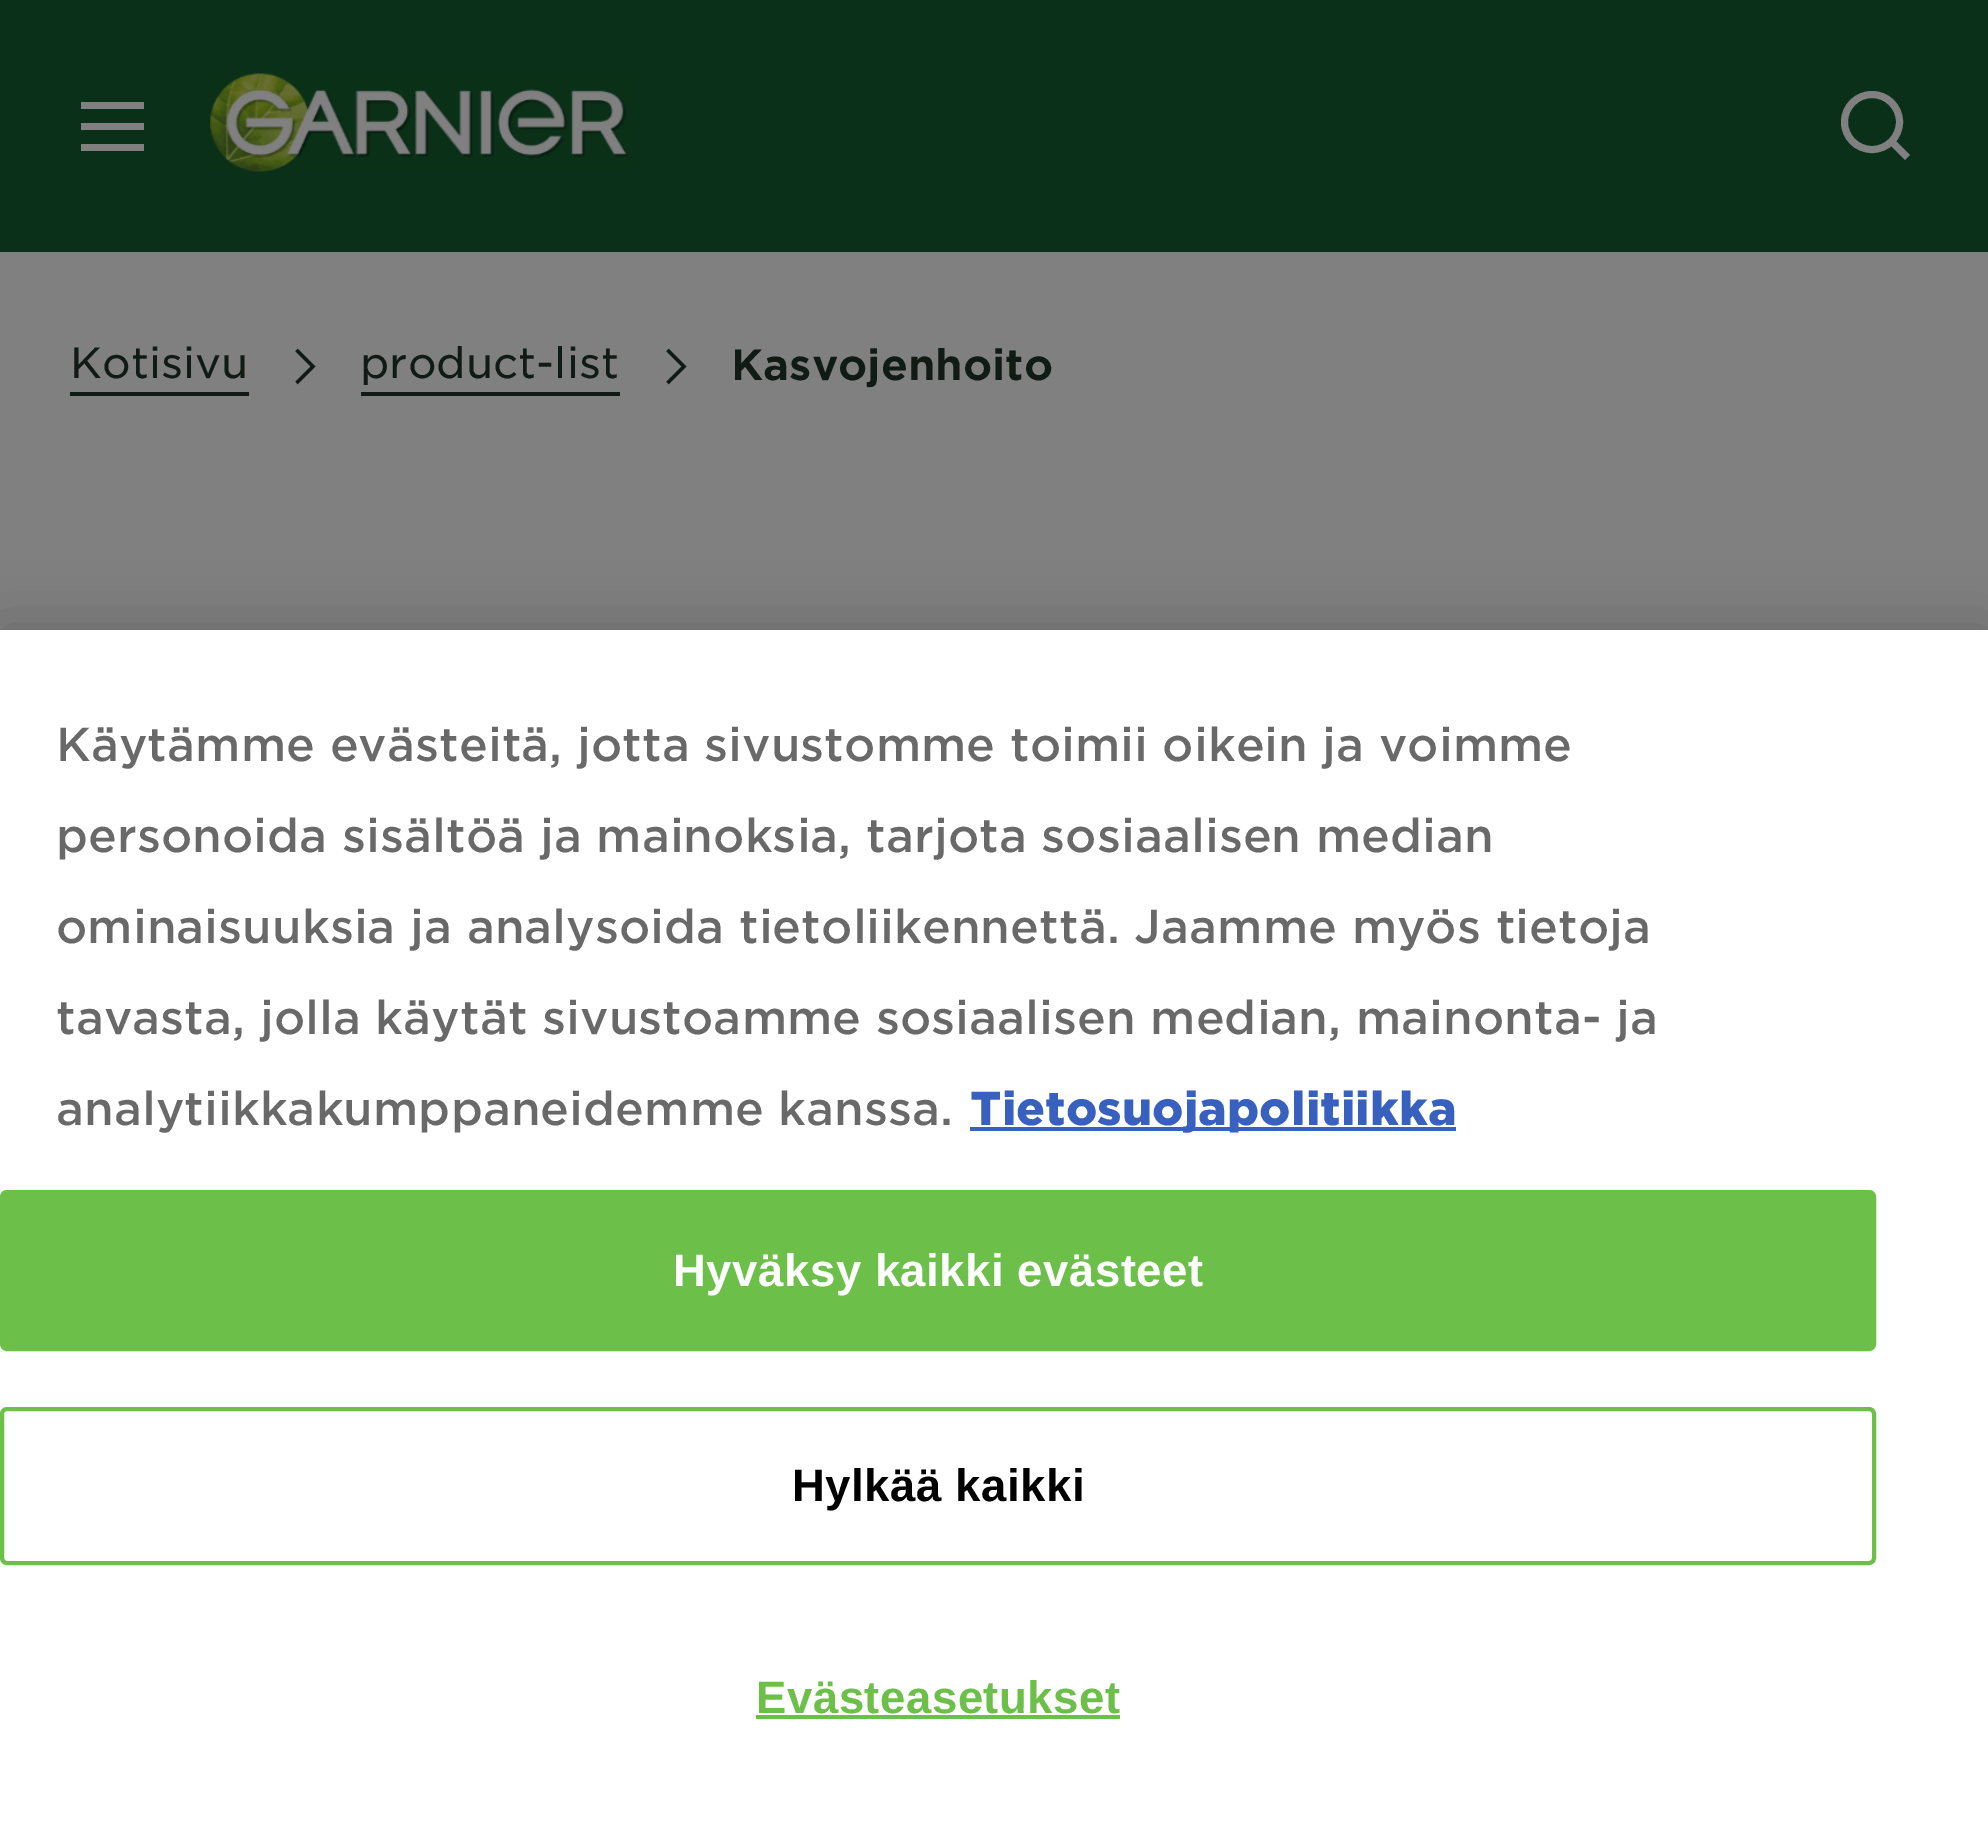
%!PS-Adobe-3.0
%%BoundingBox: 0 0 1988 1830
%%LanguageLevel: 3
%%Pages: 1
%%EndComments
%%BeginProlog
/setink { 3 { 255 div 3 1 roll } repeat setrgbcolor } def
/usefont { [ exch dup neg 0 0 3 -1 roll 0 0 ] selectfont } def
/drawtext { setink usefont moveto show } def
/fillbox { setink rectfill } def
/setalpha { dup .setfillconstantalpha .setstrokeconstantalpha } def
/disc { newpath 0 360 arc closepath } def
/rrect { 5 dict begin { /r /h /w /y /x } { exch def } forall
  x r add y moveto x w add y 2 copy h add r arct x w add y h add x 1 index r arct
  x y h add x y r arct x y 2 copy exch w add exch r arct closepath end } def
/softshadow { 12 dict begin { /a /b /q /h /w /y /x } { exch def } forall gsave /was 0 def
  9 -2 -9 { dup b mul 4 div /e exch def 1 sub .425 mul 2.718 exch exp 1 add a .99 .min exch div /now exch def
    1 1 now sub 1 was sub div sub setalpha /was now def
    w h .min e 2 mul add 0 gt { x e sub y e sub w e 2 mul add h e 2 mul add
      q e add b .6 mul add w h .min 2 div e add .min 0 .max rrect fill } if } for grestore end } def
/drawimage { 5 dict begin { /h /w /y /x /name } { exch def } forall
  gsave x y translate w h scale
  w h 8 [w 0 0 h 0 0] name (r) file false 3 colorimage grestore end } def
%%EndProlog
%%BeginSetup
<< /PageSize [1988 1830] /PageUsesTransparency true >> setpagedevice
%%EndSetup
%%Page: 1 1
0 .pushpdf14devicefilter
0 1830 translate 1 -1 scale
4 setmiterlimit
0 0 1988 1830 128 128 128 fillbox
0 0 1988 252 11 48 25 fillbox
81 102 63 7 128 128 128 fillbox
81 123 63 7 128 128 128 fillbox
81 144 63 7 128 128 128 fillbox
(assets/img1.rgb) 210 73 419 99 drawimage
7 setlinewidth
1872 122 27.5 disc stroke
1 setlinejoin
1892 142 moveto 1907.5 157.5 lineto stroke
70 392 179 4 17 27 22 fillbox
(Kotisivu) 70 378 /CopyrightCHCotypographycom-Light 42 17 27 22 drawtext
3.3 setlinewidth
0 setlinejoin
296.5 383 moveto 313 366.5 lineto 296.5 350 lineto stroke
361 392 259 4 17 27 22 fillbox
(product-list) 360 378 /CopyrightCHCotypographycom-Light 42 17 27 22 drawtext
667.5 383 moveto 684 366.5 lineto 667.5 350 lineto stroke
(Kasvojenhoito) 731 380 /CopyrightCHCotypographycom-Regular 42 17 27 22 drawtext
0 0 0 setink
0 630 1988 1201 0 31.5 0.2 softshadow
0 630 1988 1200 255 255 255 fillbox
(Käytämme evästeitä, jotta sivustomme toimii oikein ja voimme) 56 761 /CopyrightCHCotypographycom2-Light 45.55 105 105 105 drawtext
(personoida sisältöä ja mainoksia, tarjota sosiaalisen median) 56 852 /CopyrightCHCotypographycom2-Light 45.55 105 105 105 drawtext
(ominaisuuksia ja analysoida tietoliikennettä. Jaamme myös tietoja) 56 943 /CopyrightCHCotypographycom2-Light 45.55 105 105 105 drawtext
(tavasta, jolla käytät sivustoamme sosiaalisen median, mainonta- ja) 56 1034 /CopyrightCHCotypographycom2-Light 45.55 105 105 105 drawtext
(analytiikkakumppaneidemme kanssa.) 56 1125 /CopyrightCHCotypographycom2-Light 45.55 105 105 105 drawtext
970 1127 486 4 56 96 190 fillbox
(Tietosuojapolitiikka) 970 1125 /CopyrightCHCotypographycom2-Regular 45.55 56 96 190 drawtext
108 192 74 setink
2 1192 1872 157 5 rrect gsave fill grestore
4 setlinewidth
stroke
/LiberationSans-Bold 45.55 usefont
255 255 255 setink
673 1286 moveto 0.5 0 (Hyväksy kaikki evästeet) ashow
108 192 74 setink
2 1409 1872 154 5 rrect stroke
0 0 0 setink
792 1501 moveto 0.5 0 (Hylkää kaikki) ashow
108 192 74 setink
756 1713 moveto 0.5 0 (Evästeasetukset) ashow
756 1715 364 4 108 192 74 fillbox
.poppdf14devicefilter showpage
%%EOF
